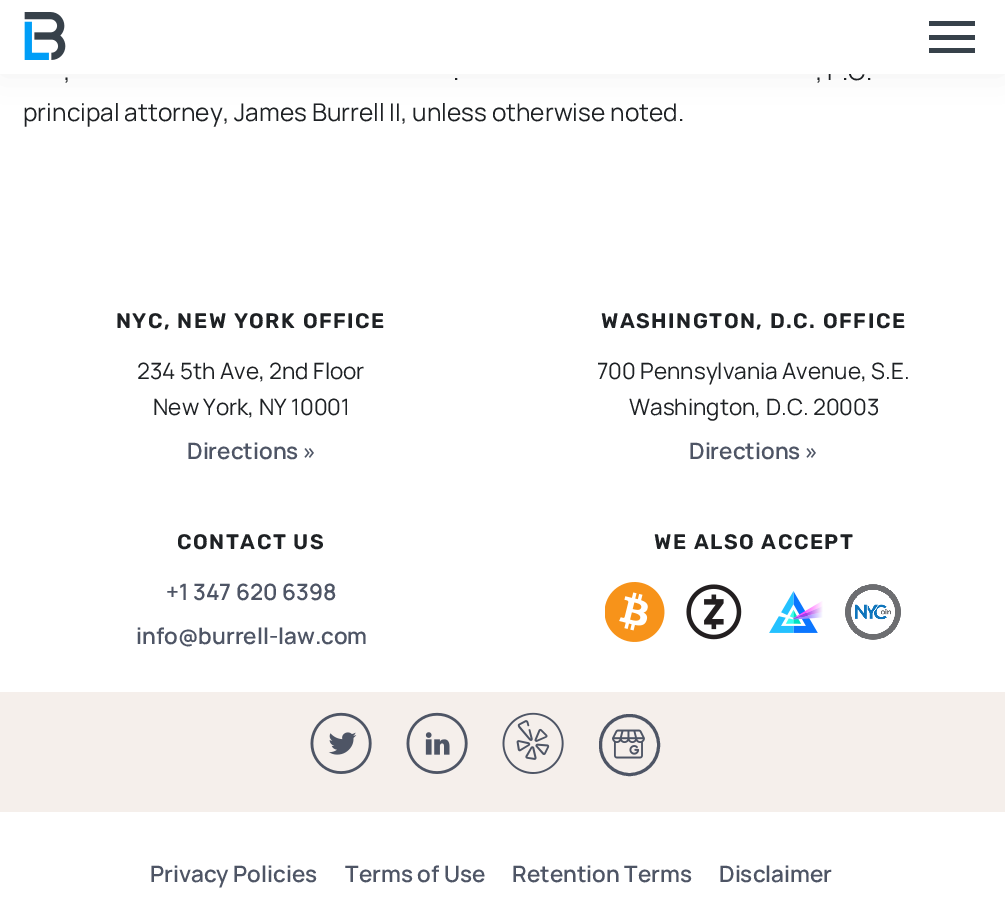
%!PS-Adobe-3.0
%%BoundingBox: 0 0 1005 910
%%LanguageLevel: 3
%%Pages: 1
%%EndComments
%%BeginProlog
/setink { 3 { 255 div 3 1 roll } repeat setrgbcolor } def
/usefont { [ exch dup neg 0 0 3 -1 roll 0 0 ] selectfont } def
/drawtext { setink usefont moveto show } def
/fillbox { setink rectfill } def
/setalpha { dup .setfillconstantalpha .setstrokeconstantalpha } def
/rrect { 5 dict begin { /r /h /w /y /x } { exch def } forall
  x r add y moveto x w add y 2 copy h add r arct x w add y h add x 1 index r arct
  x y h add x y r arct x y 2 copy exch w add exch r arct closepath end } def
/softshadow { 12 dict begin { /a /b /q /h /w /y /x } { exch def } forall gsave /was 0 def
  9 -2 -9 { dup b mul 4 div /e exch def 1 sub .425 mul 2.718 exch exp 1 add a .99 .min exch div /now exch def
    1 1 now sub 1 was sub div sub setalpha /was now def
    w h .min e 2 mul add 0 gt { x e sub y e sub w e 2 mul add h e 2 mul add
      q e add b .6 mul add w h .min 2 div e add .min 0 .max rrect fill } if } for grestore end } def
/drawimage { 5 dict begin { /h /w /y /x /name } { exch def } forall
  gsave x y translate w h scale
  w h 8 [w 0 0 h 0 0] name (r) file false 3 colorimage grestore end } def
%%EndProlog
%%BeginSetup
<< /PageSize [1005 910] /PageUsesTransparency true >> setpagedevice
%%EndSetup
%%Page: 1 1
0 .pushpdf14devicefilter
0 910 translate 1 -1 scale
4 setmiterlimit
0 0 1005 910 255 255 255 fillbox
149 154 160 setink
0 2 1005 72 0 18 0.15 softshadow
(, P.C.) 816 80 /Manrope-ExtraLight 24.45 30 33 36 drawtext
0 0 1005 74 255 255 255 fillbox
(assets/img1.rgb) 24 12 42 48 drawimage
929 21 46 5 55 65 74 fillbox
929 35 46 5 55 65 74 fillbox
929 48 46 5 55 65 74 fillbox
(,) 64 80 /Manrope-ExtraLight 24.45 30 33 36 drawtext
(.) 453 80 /Manrope-ExtraLight 24.45 30 33 36 drawtext
(principal attorney, James Burrell II, unless otherwise noted.) 23 121 /Manrope-ExtraLight 24.45 30 33 36 drawtext
/Rubik-SemiBold 21 usefont
116 328 moveto 1.5 0 (NYC, NEW YORK OFFICE) ashow
(234 5th Ave, 2nd Floor) 137 379 /Manrope-ExtraLight 22.5 30 33 36 drawtext
(New York, NY 10001) 153 415 /Manrope-ExtraLight 22.5 30 33 36 drawtext
(Directions ») 187 459 /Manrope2-ExtraLight 22.5 78 85 101 drawtext
/Rubik-SemiBold 21 usefont
30 33 36 setink
601 328 moveto 1.5 0 (WASHINGTON, D.C. OFFICE) ashow
(700 Pennsylvania Avenue, S.E.) 597 379 /Manrope-ExtraLight 22.5 30 33 36 drawtext
(Washington, D.C. 20003) 629 415 /Manrope-ExtraLight 22.5 30 33 36 drawtext
(Directions ») 689 459 /Manrope2-ExtraLight 22.5 78 85 101 drawtext
/Rubik-SemiBold 21 usefont
30 33 36 setink
177 549 moveto 1.5 0 (CONTACT US) ashow
(+1 347 620 6398) 166 600 /Manrope2-ExtraLight 22.5 78 85 101 drawtext
(info@burrell-law.com) 136 644 /Manrope2-ExtraLight 22.5 78 85 101 drawtext
/Rubik-SemiBold 21 usefont
30 33 36 setink
654 549 moveto 1.5 0 (WE ALSO ACCEPT) ashow
(assets/img2.rgb) 605 582 60 60 drawimage
(assets/img3.rgb) 686 584 56 56 drawimage
(assets/img4.rgb) 769 591 54 42 drawimage
(assets/img5.rgb) 845 584 56 56 drawimage
0 692 1005 120 245 239 235 fillbox
(assets/img6.rgb) 310 712 62 62 drawimage
(assets/img7.rgb) 406 712 62 62 drawimage
(assets/img8.rgb) 502 712 62 62 drawimage
78 85 101 setink
3 setlinewidth
600.5 715.5 58 59 29 rrect stroke
(assets/img9.rgb) 612 729 33 30 drawimage
(Privacy Policies) 150 882 /Manrope2-ExtraLight 22.5 78 85 101 drawtext
(Terms of Use) 345 882 /Manrope2-ExtraLight 22.5 78 85 101 drawtext
(Retention Terms) 512 882 /Manrope2-ExtraLight 22.5 78 85 101 drawtext
(Disclaimer) 719 882 /Manrope2-ExtraLight 22.5 78 85 101 drawtext
.poppdf14devicefilter showpage
%%EOF
